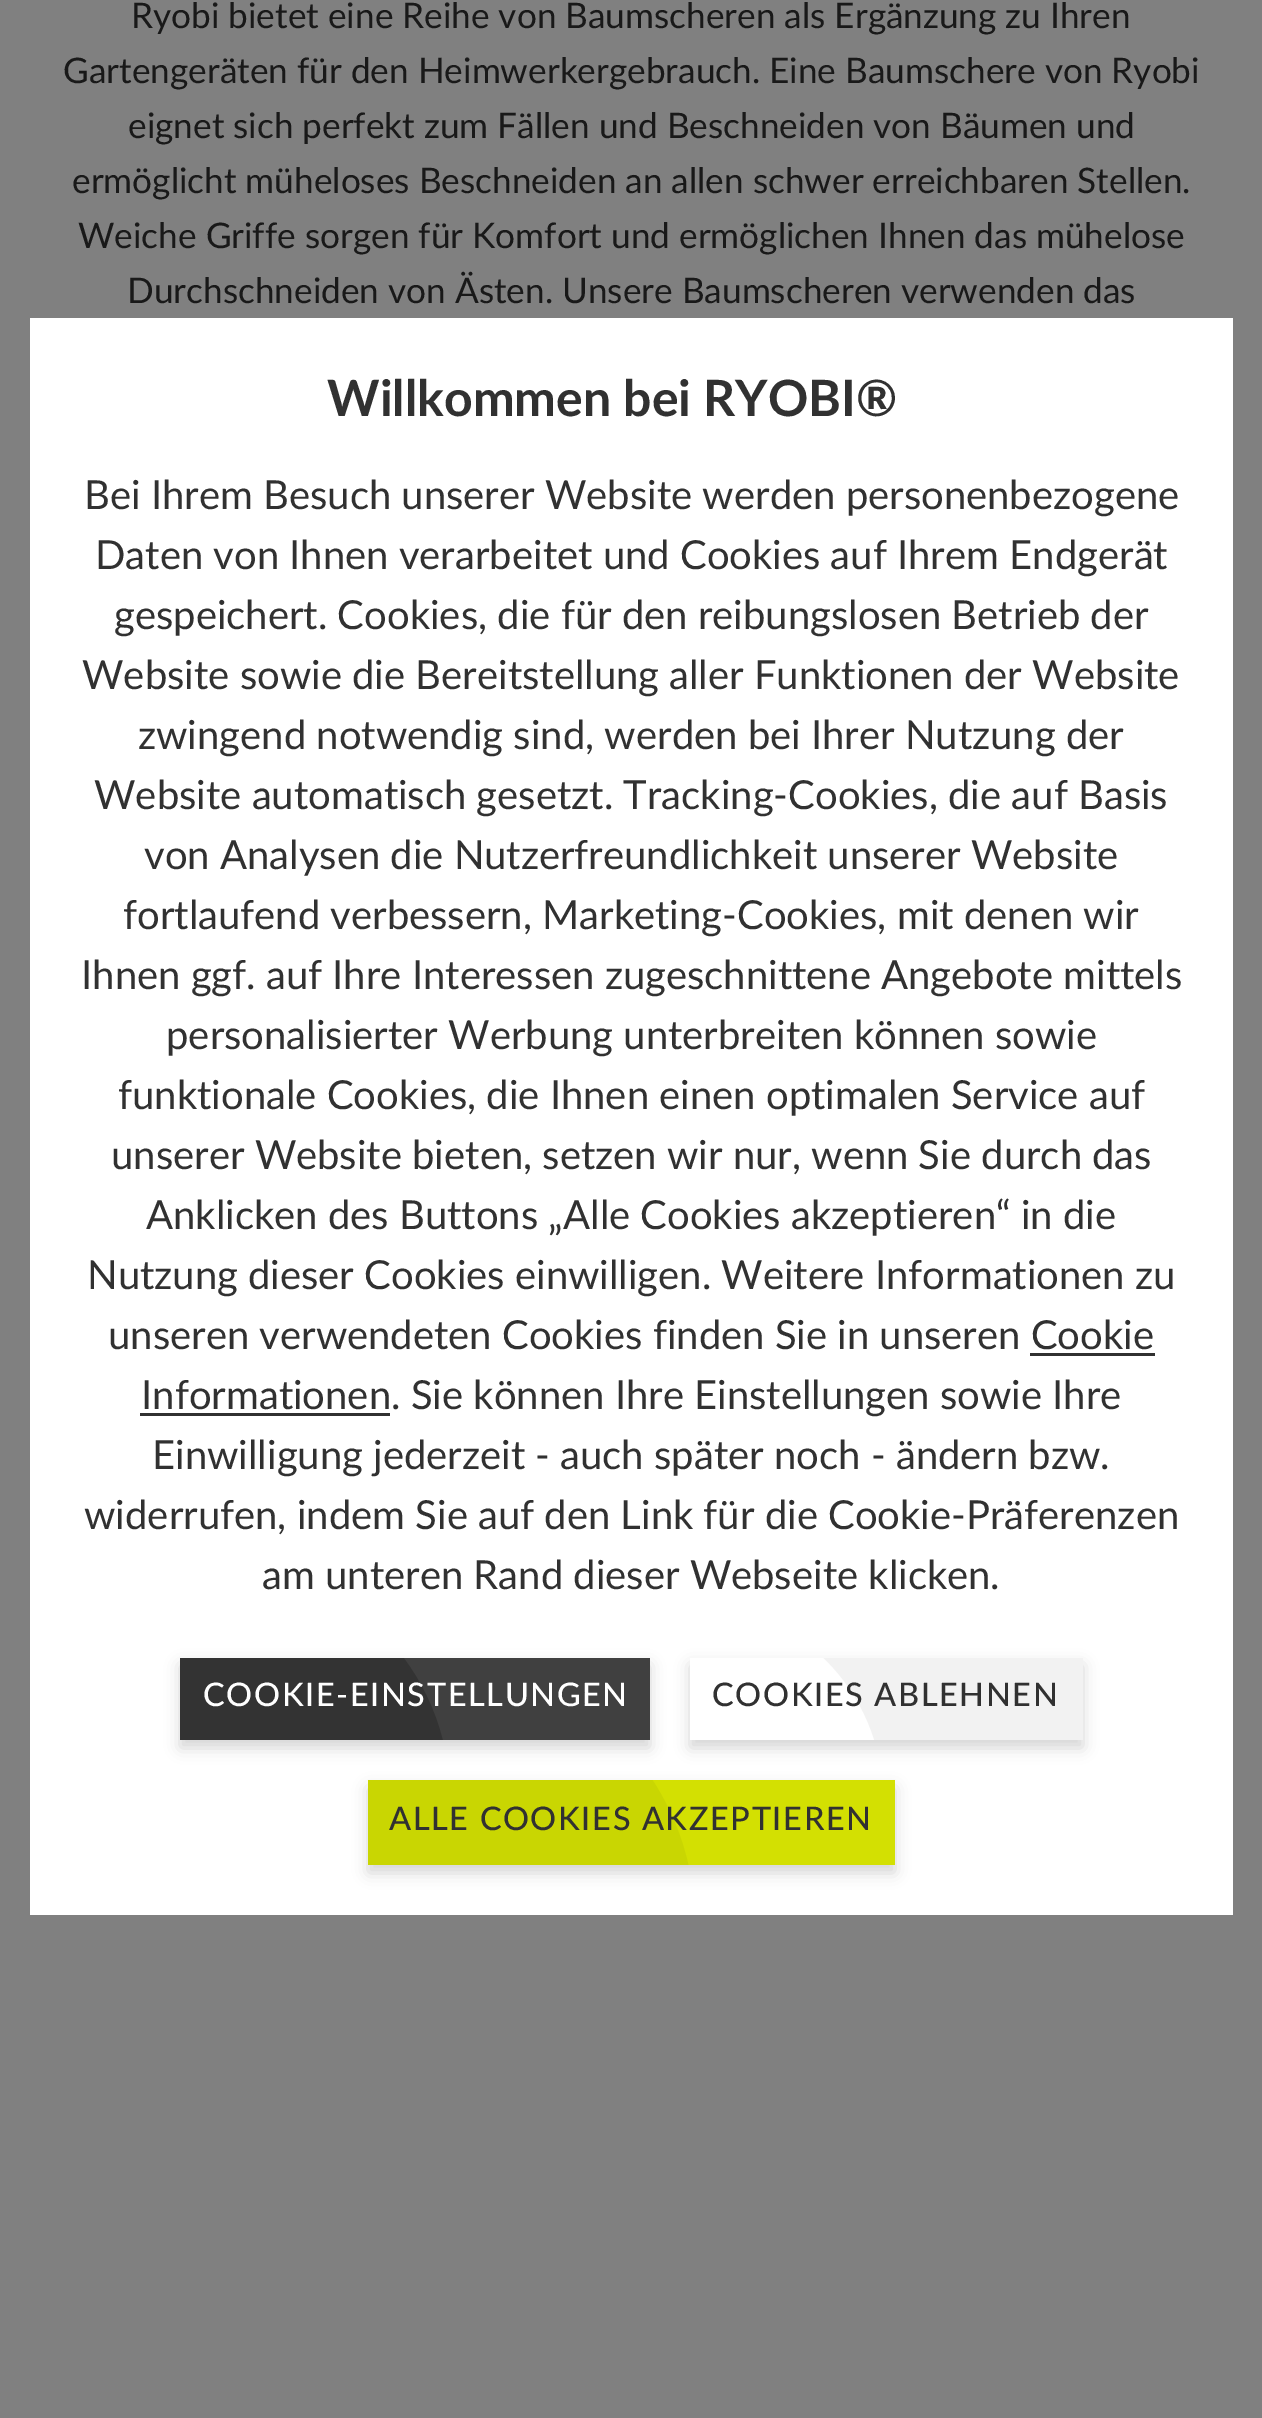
%!PS-Adobe-3.0
%%BoundingBox: 0 0 1262 2418
%%LanguageLevel: 3
%%Pages: 1
%%EndComments
%%BeginProlog
/setink { 3 { 255 div 3 1 roll } repeat setrgbcolor } def
/usefont { [ exch dup neg 0 0 3 -1 roll 0 0 ] selectfont } def
/drawtext { setink usefont moveto show } def
/fillbox { setink rectfill } def
/setalpha { dup .setfillconstantalpha .setstrokeconstantalpha } def
/disc { newpath 0 360 arc closepath } def
/rrect { 5 dict begin { /r /h /w /y /x } { exch def } forall
  x r add y moveto x w add y 2 copy h add r arct x w add y h add x 1 index r arct
  x y h add x y r arct x y 2 copy exch w add exch r arct closepath end } def
/softshadow { 12 dict begin { /a /b /q /h /w /y /x } { exch def } forall gsave /was 0 def
  9 -2 -9 { dup b mul 4 div /e exch def 1 sub .425 mul 2.718 exch exp 1 add a .99 .min exch div /now exch def
    1 1 now sub 1 was sub div sub setalpha /was now def
    w h .min e 2 mul add 0 gt { x e sub y e sub w e 2 mul add h e 2 mul add
      q e add b .6 mul add w h .min 2 div e add .min 0 .max rrect fill } if } for grestore end } def
%%EndProlog
%%BeginSetup
<< /PageSize [1262 2418] /PageUsesTransparency true >> setpagedevice
%%EndSetup
%%Page: 1 1
0 .pushpdf14devicefilter
0 2418 translate 1 -1 scale
4 setmiterlimit
0 0 1262 2418 128 128 128 fillbox
(Ryobi bietet eine Reihe von Baumscheren als Ergänzung zu Ihren) 131 28 /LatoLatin-Regular 35.2 25 25 25 drawtext
(Gartengeräten für den Heimwerkergebrauch. Eine Baumschere von Ryobi) 63 83 /LatoLatin-Regular 35.2 25 25 25 drawtext
(eignet sich perfekt zum Fällen und Beschneiden von Bäumen und) 128 138 /LatoLatin-Regular 35.2 25 25 25 drawtext
(ermöglicht müheloses Beschneiden an allen schwer erreichbaren Stellen.) 72 193 /LatoLatin-Regular 35.2 25 25 25 drawtext
(Weiche Griffe sorgen für Komfort und ermöglichen Ihnen das mühelose) 78 248 /LatoLatin-Regular 35.2 25 25 25 drawtext
(Durchschneiden von Ästen. Unsere Baumscheren verwenden das) 127 303 /LatoLatin-Regular 35.2 25 25 25 drawtext
30 318 1203 1597 255 255 255 fillbox
(Willkommen bei RYOBI®) 327 416 /LatoLatin-Bold 50 49 49 49 drawtext
(Bei Ihrem Besuch unserer Website werden personenbezogene) 84 509 /LatoLatin-Regular 40 49 49 49 drawtext
(Daten von Ihnen verarbeitet und Cookies auf Ihrem Endgerät) 95 569 /LatoLatin-Regular 40 49 49 49 drawtext
(gespeichert. Cookies, die für den reibungslosen Betrieb der) 114 629 /LatoLatin-Regular 40 49 49 49 drawtext
(Website sowie die Bereitstellung aller Funktionen der Website) 82 689 /LatoLatin-Regular 40 49 49 49 drawtext
(zwingend notwendig sind, werden bei Ihrer Nutzung der) 138 749 /LatoLatin-Regular 40 49 49 49 drawtext
(Website automatisch gesetzt. Tracking-Cookies, die auf Basis) 94 809 /LatoLatin-Regular 40 49 49 49 drawtext
(von Analysen die Nutzerfreundlichkeit unserer Website) 144 869 /LatoLatin-Regular 40 49 49 49 drawtext
(fortlaufend verbessern, Marketing-Cookies, mit denen wir) 123 929 /LatoLatin-Regular 40 49 49 49 drawtext
(Ihnen ggf. auf Ihre Interessen zugeschnittene Angebote mittels) 81 989 /LatoLatin-Regular 40 49 49 49 drawtext
(personalisierter Werbung unterbreiten können sowie) 166 1049 /LatoLatin-Regular 40 49 49 49 drawtext
(funktionale Cookies, die Ihnen einen optimalen Service auf) 118 1109 /LatoLatin-Regular 40 49 49 49 drawtext
(unserer Website bieten, setzen wir nur, wenn Sie durch das) 111 1169 /LatoLatin-Regular 40 49 49 49 drawtext
(Anklicken des Buttons „Alle Cookies akzeptieren“ in die) 146 1229 /LatoLatin-Regular 40 49 49 49 drawtext
(Nutzung dieser Cookies einwilligen. Weitere Informationen zu) 87 1289 /LatoLatin-Regular 40 49 49 49 drawtext
(unseren verwendeten Cookies finden Sie in unseren Cookie) 108 1349 /LatoLatin-Regular 40 49 49 49 drawtext
140 1413 250 3 49 49 49 fillbox
(Informationen. Sie können Ihre Einstellungen sowie Ihre) 141 1409 /LatoLatin-Regular 40 49 49 49 drawtext
1030 1353 125 3 49 49 49 fillbox
(Einwilligung jederzeit - auch später noch - ändern bzw.) 152 1469 /LatoLatin-Regular 40 49 49 49 drawtext
(widerrufen, indem Sie auf den Link für die Cookie-Präferenzen) 84 1529 /LatoLatin-Regular 40 49 49 49 drawtext
(am unteren Rand dieser Webseite klicken.) 262 1589 /LatoLatin-Regular 40 49 49 49 drawtext
0 0 0 setink
180 1665 470 83 0 7.5 0.16 softshadow
403 1658 247 82 64 64 64 fillbox
gsave
180 1658 470 82 rectclip
51 51 51 setink
215 1798 235 disc fill
grestore
/LatoLatin-Medium 32.5 usefont
255 255 255 setink
203 1706 moveto 1.6 0 (COOKIE-EINSTELLUNGEN) ashow
0 0 0 setink
690 1665 393 83 0 7.5 0.16 softshadow
823 1658 260 82 242 242 242 fillbox
gsave
690 1658 393 82 rectclip
255 255 255 setink
490 1603 393 392 196 rrect fill
grestore
49 49 49 setink
712 1706 moveto 1.6 0 (COOKIES ABLEHNEN) ashow
0 0 0 setink
368 1788 527 85 0 7.5 0.16 softshadow
652 1780 243 85 211 224 2 fillbox
gsave
368 1780 527 85 rectclip
201 214 2 setink
431.5 1660 moveto 577 1660 695 1778 695 1923.5 curveto 695 1915 lineto 168 1915 lineto 168 1923.5 lineto 168 1778 286 1660 431.5 1660 curveto closepath fill
grestore
49 49 49 setink
389 1830 moveto 1.6 0 (ALLE COOKIES AKZEPTIEREN) ashow
.poppdf14devicefilter showpage
%%EOF
